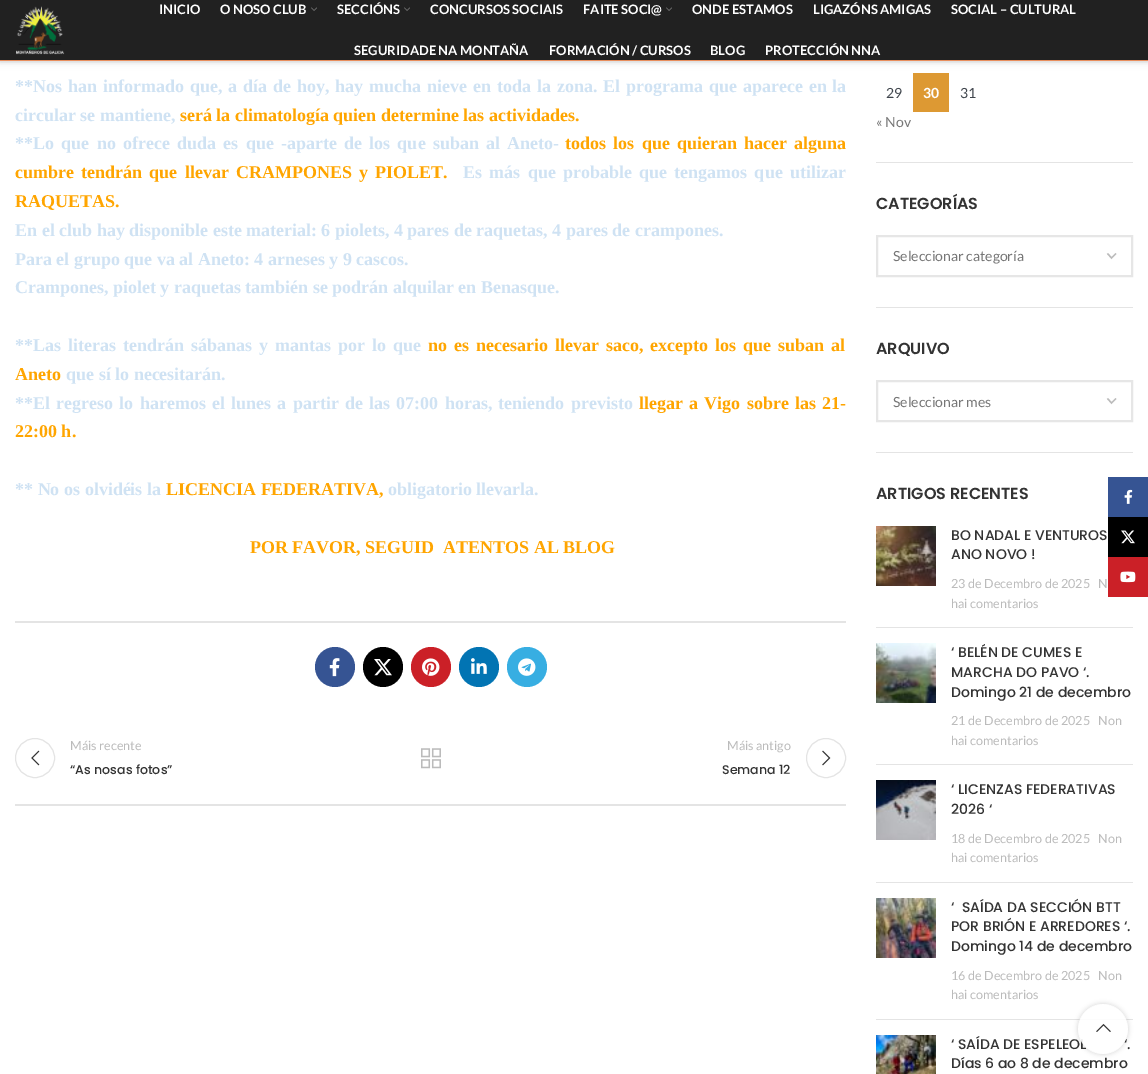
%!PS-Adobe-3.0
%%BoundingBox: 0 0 1148 1074
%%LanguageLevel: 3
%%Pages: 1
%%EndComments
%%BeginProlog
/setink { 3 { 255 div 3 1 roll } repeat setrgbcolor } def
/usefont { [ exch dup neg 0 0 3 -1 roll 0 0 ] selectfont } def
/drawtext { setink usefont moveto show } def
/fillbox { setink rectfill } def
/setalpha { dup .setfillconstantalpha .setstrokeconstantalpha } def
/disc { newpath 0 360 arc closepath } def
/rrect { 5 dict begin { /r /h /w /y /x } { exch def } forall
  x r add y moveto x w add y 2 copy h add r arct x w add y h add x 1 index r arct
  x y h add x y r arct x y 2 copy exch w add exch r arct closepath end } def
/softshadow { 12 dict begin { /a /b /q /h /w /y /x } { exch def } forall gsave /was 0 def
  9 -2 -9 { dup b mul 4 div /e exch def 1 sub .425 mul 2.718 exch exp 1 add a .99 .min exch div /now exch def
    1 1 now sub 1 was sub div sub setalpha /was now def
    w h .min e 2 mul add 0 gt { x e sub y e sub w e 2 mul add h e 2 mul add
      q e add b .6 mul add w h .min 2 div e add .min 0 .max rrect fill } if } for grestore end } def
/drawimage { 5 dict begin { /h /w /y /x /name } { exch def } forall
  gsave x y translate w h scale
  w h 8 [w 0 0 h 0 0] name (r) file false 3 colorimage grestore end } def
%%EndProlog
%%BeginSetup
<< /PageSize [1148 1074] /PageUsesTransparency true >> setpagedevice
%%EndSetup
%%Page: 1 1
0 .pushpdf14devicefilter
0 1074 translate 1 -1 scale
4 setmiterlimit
0 0 1148 1074 255 255 255 fillbox
0 0 0 setink
0 1 1148 61 0 1.5 0.1 softshadow
913 73 36 39 221 153 51 fillbox
0 0 0 setink
0 1 1148 61 0 4 0.1 softshadow
0 0 1148 60 33 33 33 fillbox
0 60 1148 1 232 141 92 fillbox
(assets/img1.rgb) 16 6 49 49 drawimage
(INICIO) 159 14 /Lato-Bold 13 255 255 255 drawtext
(O NOSO CLUB) 220 14 /Lato-Bold 13 255 255 255 drawtext
(assets/img2.rgb) 311 7 6 4 drawimage
(SECCIÓNS) 337 14 /Lato-Bold 13 255 255 255 drawtext
(assets/img2.rgb) 404 7 6 4 drawimage
(CONCURSOS SOCIAIS) 430 14 /Lato-Bold 13 255 255 255 drawtext
(FAITE SOCI@) 583 14 /Lato-Bold 13 255 255 255 drawtext
(assets/img2.rgb) 666 7 6 4 drawimage
(ONDE ESTAMOS) 692 14 /Lato-Bold 13 255 255 255 drawtext
(LIGAZÓNS AMIGAS) 813 14 /Lato-Bold 13 255 255 255 drawtext
(SOCIAL – CULTURAL) 951 14 /Lato-Bold 13 255 255 255 drawtext
(SEGURIDADE NA MONTAÑA) 354 55 /Lato-Bold 13 255 255 255 drawtext
(FORMACIÓN / CURSOS) 549 55 /Lato-Bold 13 255 255 255 drawtext
(BLOG) 710 55 /Lato-Bold 13 255 255 255 drawtext
(PROTECCIÓN NNA) 765 55 /Lato-Bold 13 255 255 255 drawtext
/LiberationSerif-Bold 18 usefont
207 226 243 setink
15 92 moveto 1.4 0 32 (**Nos han informado que, a día de hoy, hay mucha nieve en toda la zona.) widthshow
603 92 moveto 1.4 0 32 (El programa que aparece en la) widthshow
(circular se mantiene,) 15 121 /LiberationSerif-Bold 18 207 226 243 drawtext
(será la climatología quien determine las actividades.) 180 121 /LiberationSerif-Bold 18 255 165 0 drawtext
207 226 243 setink
15 149 moveto 2.75 0 32 (**Lo que no ofrece) widthshow
177 149 moveto 2.75 0 32 (duda es que -aparte de los que suban al Aneto-) widthshow
255 165 0 setink
565 149 moveto 2.75 0 32 (todos los que quieran hacer alguna) widthshow
15 178 moveto 2.75 0 32 (cumbre tendrán que llevar CRAMPONES y PIOLET.) widthshow
207 226 243 setink
463 178 moveto 2.75 0 32 (Es más que probable que tengamos que utilizar) widthshow
(RAQUETAS.) 15 207 /LiberationSerif-Bold 18 255 165 0 drawtext
(En el club hay disponible este material: 6 piolets, 4 pares de raquetas, 4 pares de crampones.) 15 236 /LiberationSerif-Bold 18 207 226 243 drawtext
(Para el grupo que va al Aneto: 4 arneses y 9 cascos.) 15 265 /LiberationSerif-Bold 18 207 226 243 drawtext
(Crampones, piolet y raquetas también se podrán alquilar en Benasque.) 15 293 /LiberationSerif-Bold 18 207 226 243 drawtext
15 351 moveto 2.5 0 32 (**Las literas tendrán sábanas y mantas por lo que) widthshow
255 165 0 setink
428 351 moveto 2.5 0 32 (no es necesario llevar saco, excepto los que suban al) widthshow
(Aneto) 15 380 /LiberationSerif-Bold 18 255 165 0 drawtext
(que sí lo necesitarán.) 66 380 /LiberationSerif-Bold 18 207 226 243 drawtext
15 409 moveto 1.75 0 32 (**El regreso lo haremos el lunes a partir de las 07:00 horas, teniendo previsto) widthshow
255 165 0 setink
639 409 moveto 1.75 0 32 (llegar a Vigo sobre las 21-) widthshow
(22:00 h.) 15 437 /LiberationSerif-Bold 18 255 165 0 drawtext
(** No os olvidéis la) 15 495 /LiberationSerif-Bold 18 207 226 243 drawtext
(LICENCIA FEDERATIVA,) 166 495 /LiberationSerif-Bold 18 255 165 0 drawtext
(obligatorio llevarla.) 388 495 /LiberationSerif-Bold 18 207 226 243 drawtext
(POR FAVOR, SEGUID  ATENTOS AL BLOG) 250 553 /LiberationSerif-Bold 18 255 165 0 drawtext
15 621 831 2 228 228 228 fillbox
54 84 147 setink
335 667 20 disc fill
(assets/img3.rgb) 329 658 11 19 drawimage
0 0 0 setink
383 667 20 disc fill
(assets/img4.rgb) 374 659 18 17 drawimage
203 32 39 setink
431 667 20 disc fill
(assets/img5.rgb) 422 658 18 18 drawimage
2 116 179 setink
479 667 20 disc fill
(assets/img6.rgb) 471 658 16 16 drawimage
55 174 226 setink
527 667 20 disc fill
(assets/img7.rgb) 518 658 18 18 drawimage
15 804 831 2 228 228 228 fillbox
35 758 19.5 disc stroke
(assets/img8.rgb) 31 750 9 16 drawimage
(Máis recente) 70 750 /Lato-Regular 12.6 187 187 187 drawtext
(“As nosas fotos”) 70 774 /Poppins-Medium 12.6 51 51 51 drawtext
(assets/img9.rgb) 421 748 20 21 drawimage
(Máis antigo) 727 750 /Lato-Regular 12.6 187 187 187 drawtext
228 228 228 setink
826 758 19.5 disc stroke
(assets/img10.rgb) 822 750 9 16 drawimage
(Semana 12) 722 774 /Poppins-Medium 12.6 51 51 51 drawtext
876 162 257 1 228 228 228 fillbox
(29) 886 98 /Lato-Regular 14 64 70 77 drawtext
(30) 923 98 /Lato-Bold 14 255 255 255 drawtext
(31) 960 98 /Lato-Regular 14 64 70 77 drawtext
(« Nov) 876 127 /Lato-Regular 14 118 118 118 drawtext
876 307 257 1 228 228 228 fillbox
(CATEGORÍAS) 876 209 /Poppins-SemiBold 16 51 51 51 drawtext
187 187 187 setink
1.4 setlinewidth
1107.5 253.5 moveto 1111.5 258 lineto 1116 253.5 lineto stroke
230 230 230 setink
2 setlinewidth
877 236 255 40 rectstroke
(Seleccionar categoría) 893 261 /Lato-Regular 14 118 118 118 drawtext
876 452 257 1 228 228 228 fillbox
(ARQUIVO) 876 354 /Poppins-SemiBold 16 51 51 51 drawtext
187 187 187 setink
1.4 setlinewidth
1107.5 398.5 moveto 1111.5 403 lineto 1116 398.5 lineto stroke
230 230 230 setink
2 setlinewidth
877 381 255 40 rectstroke
(Seleccionar mes) 893 407 /Lato-Regular 14 118 118 118 drawtext
(ARTIGOS RECENTES) 876 499 /Poppins-SemiBold 16 51 51 51 drawtext
876 627 257 1 228 228 228 fillbox
(assets/img11.rgb) 876 526 60 60 drawimage
(BO NADAL E VENTUROS) 951 540 /Poppins-Medium 14 51 51 51 drawtext
(ANO NOVO !) 951 559 /Poppins-Medium 14 51 51 51 drawtext
(23 de Decembro de 2025) 951 588 /Lato-Regular 12.6 187 187 187 drawtext
(N) 1098 588 /Lato-Regular 12.6 187 187 187 drawtext
(hai comentarios) 951 608 /Lato-Regular 12.6 187 187 187 drawtext
876 764 257 1 228 228 228 fillbox
(assets/img12.rgb) 876 643 60 60 drawimage
(‘ BELÉN DE CUMES E) 951 657 /Poppins-Medium 14 51 51 51 drawtext
(MARCHA DO PAVO ‘.) 951 677 /Poppins-Medium 14 51 51 51 drawtext
(Domingo 21 de decembro) 951 697 /Poppins-Medium 14 51 51 51 drawtext
(21 de Decembro de 2025) 951 725 /Lato-Regular 12.6 187 187 187 drawtext
(Non) 1098 725 /Lato-Regular 12.6 187 187 187 drawtext
(hai comentarios) 951 745 /Lato-Regular 12.6 187 187 187 drawtext
876 882 257 1 228 228 228 fillbox
(assets/img13.rgb) 876 780 60 60 drawimage
(‘ LICENZAS FEDERATIVAS) 951 794 /Poppins-Medium 14 51 51 51 drawtext
(2026 ‘) 951 814 /Poppins-Medium 14 51 51 51 drawtext
(18 de Decembro de 2025) 951 843 /Lato-Regular 12.6 187 187 187 drawtext
(Non) 1098 843 /Lato-Regular 12.6 187 187 187 drawtext
(hai comentarios) 951 862 /Lato-Regular 12.6 187 187 187 drawtext
876 1019 257 1 228 228 228 fillbox
(assets/img14.rgb) 876 898 60 60 drawimage
(‘  SAÍDA DA SECCIÓN BTT) 951 912 /Poppins-Medium 14 51 51 51 drawtext
(POR BRIÓN E ARREDORES ‘.) 951 931 /Poppins-Medium 14 51 51 51 drawtext
(Domingo 14 de decembro) 951 951 /Poppins-Medium 14 51 51 51 drawtext
(16 de Decembro de 2025) 951 980 /Lato-Regular 12.6 187 187 187 drawtext
(Non) 1098 980 /Lato-Regular 12.6 187 187 187 drawtext
(hai comentarios) 951 999 /Lato-Regular 12.6 187 187 187 drawtext
(assets/img15.rgb) 876 1035 60 39 drawimage
(‘ SAÍDA DE ESPELEOL) 951 1049 /Poppins-Medium 14 51 51 51 drawtext
(‘.) 1124 1049 /Poppins-Medium 14 51 51 51 drawtext
(Días 6 ao 8 de decembro) 951 1068 /Poppins-Medium 14 51 51 51 drawtext
1108 477 40 40 54 84 147 fillbox
(assets/img16.rgb) 1124 489 9 15 drawimage
1108 517 40 40 0 0 0 fillbox
(assets/img17.rgb) 1121 530 14 14 drawimage
1108 557 40 40 203 32 39 fillbox
(assets/img18.rgb) 1120 571 16 12 drawimage
gsave
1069 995 moveto 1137 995 lineto 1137 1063 lineto 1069 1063 lineto closepath 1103 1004 moveto 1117 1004 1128 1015 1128 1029 curveto 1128 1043 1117 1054 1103 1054 curveto 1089 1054 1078 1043 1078 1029 curveto 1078 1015 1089 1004 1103 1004 curveto closepath eoclip newpath
0 0 0 setink
1078 1004 50 50 25 2.5 0.17 softshadow
grestore
0.9 setalpha
255 255 255 setink
1103 1029 25 disc fill
1 setalpha
(assets/img19.rgb) 1096 1023 15 9 drawimage
.poppdf14devicefilter showpage
%%EOF
